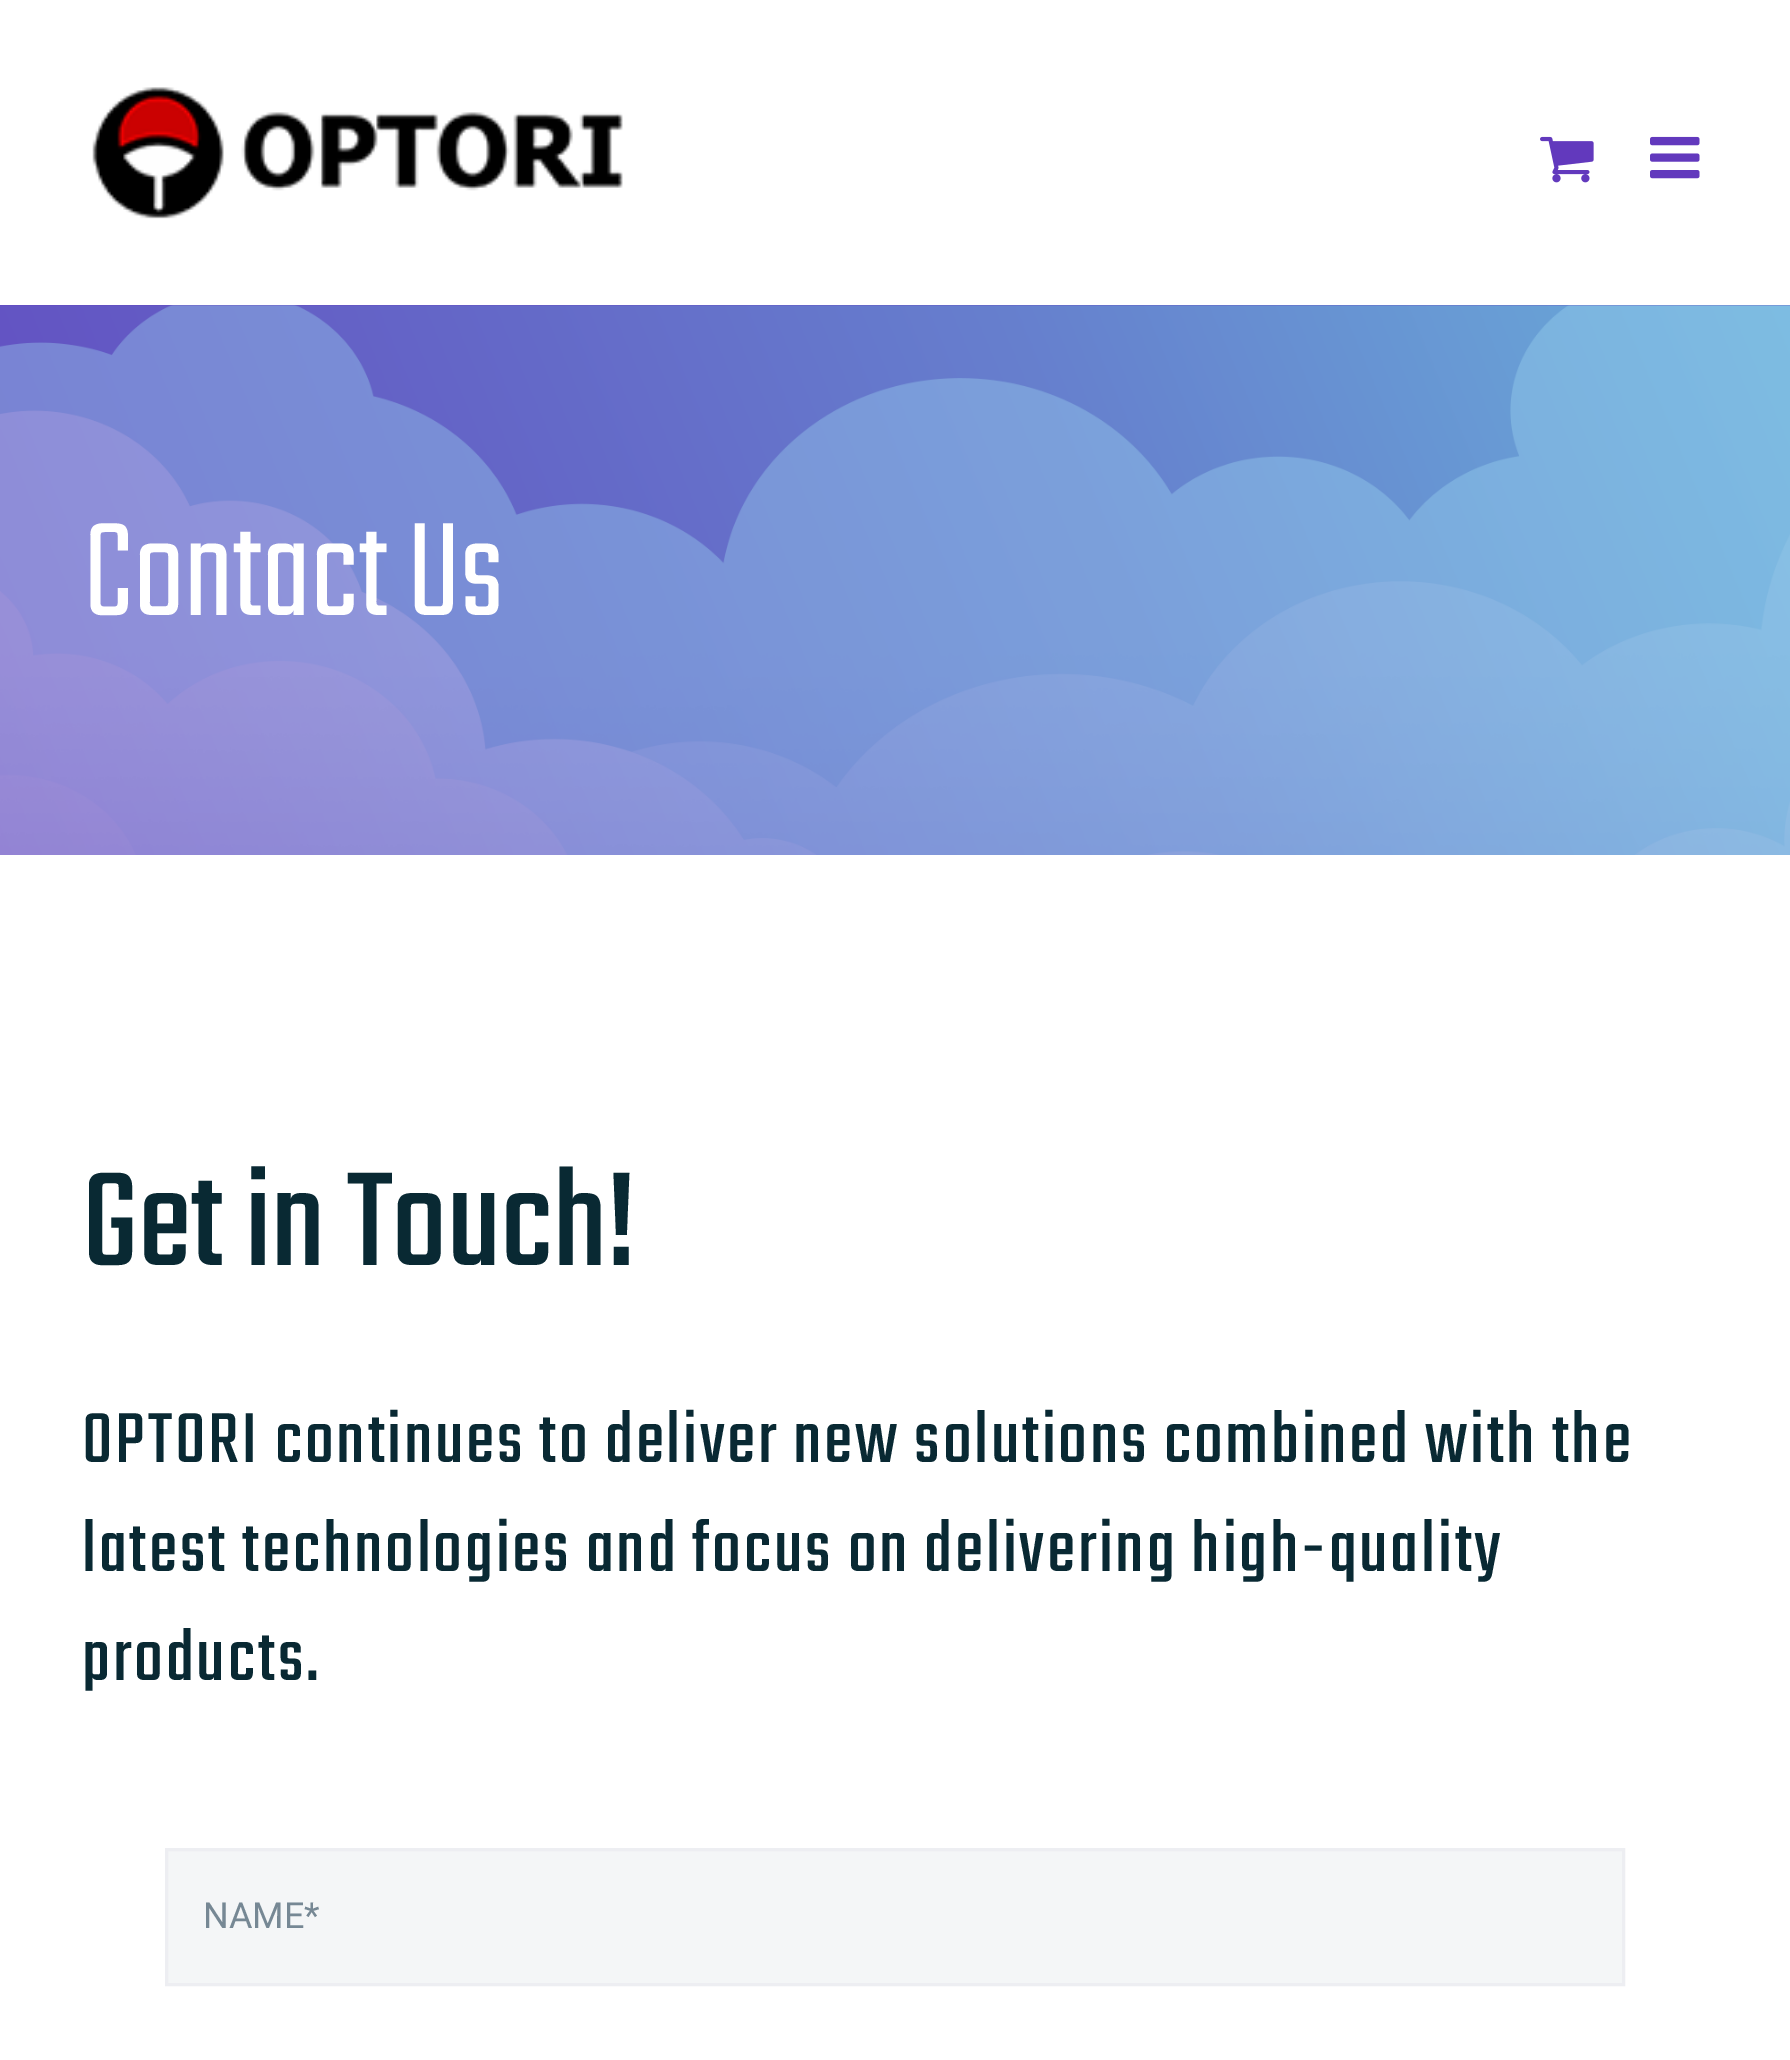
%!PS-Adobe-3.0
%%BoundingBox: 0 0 1790 2060
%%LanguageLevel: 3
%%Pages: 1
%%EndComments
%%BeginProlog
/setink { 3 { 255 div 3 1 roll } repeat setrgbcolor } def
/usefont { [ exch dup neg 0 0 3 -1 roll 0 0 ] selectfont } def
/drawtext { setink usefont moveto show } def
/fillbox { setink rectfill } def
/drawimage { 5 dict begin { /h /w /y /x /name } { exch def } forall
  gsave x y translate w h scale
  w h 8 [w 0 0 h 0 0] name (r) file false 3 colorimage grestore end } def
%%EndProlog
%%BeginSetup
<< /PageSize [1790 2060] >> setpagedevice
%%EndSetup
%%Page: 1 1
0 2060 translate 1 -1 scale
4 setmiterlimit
0 0 1790 2060 255 255 255 fillbox
(assets/img1.rgb) 92 87 531 132 drawimage
(assets/img2.rgb) 1540 136 54 47 drawimage
(assets/img3.rgb) 1650 136 50 43 drawimage
(assets/img4.rgb) 0 305 1790 550 drawimage
(Contact Us) 83 615 /Teko-Light 147.5 255 255 255 drawtext
(Get in Touch!) 82 1265 /Teko-Regular 147.5 9 41 51 drawtext
/Teko-Regular 77.9 usefont
82 1462 moveto 2.75 0 (OPTORI continues to deliver new solutions combined with the) ashow
82 1571 moveto 2.75 0 (latest technologies and focus on delivering high-quality) ashow
82 1680 moveto 2.75 0 (products.) ashow
244 246 247 setink
166.5 1849.5 moveto 1623.5 1849.5 lineto 1623.5 1984.5 lineto 166.5 1984.5 lineto closepath gsave fill grestore
237 238 242 setink
3 setlinewidth
stroke
(NAME*) 203 1928 /Roboto-Regular 36 118 136 148 drawtext
showpage
%%EOF
